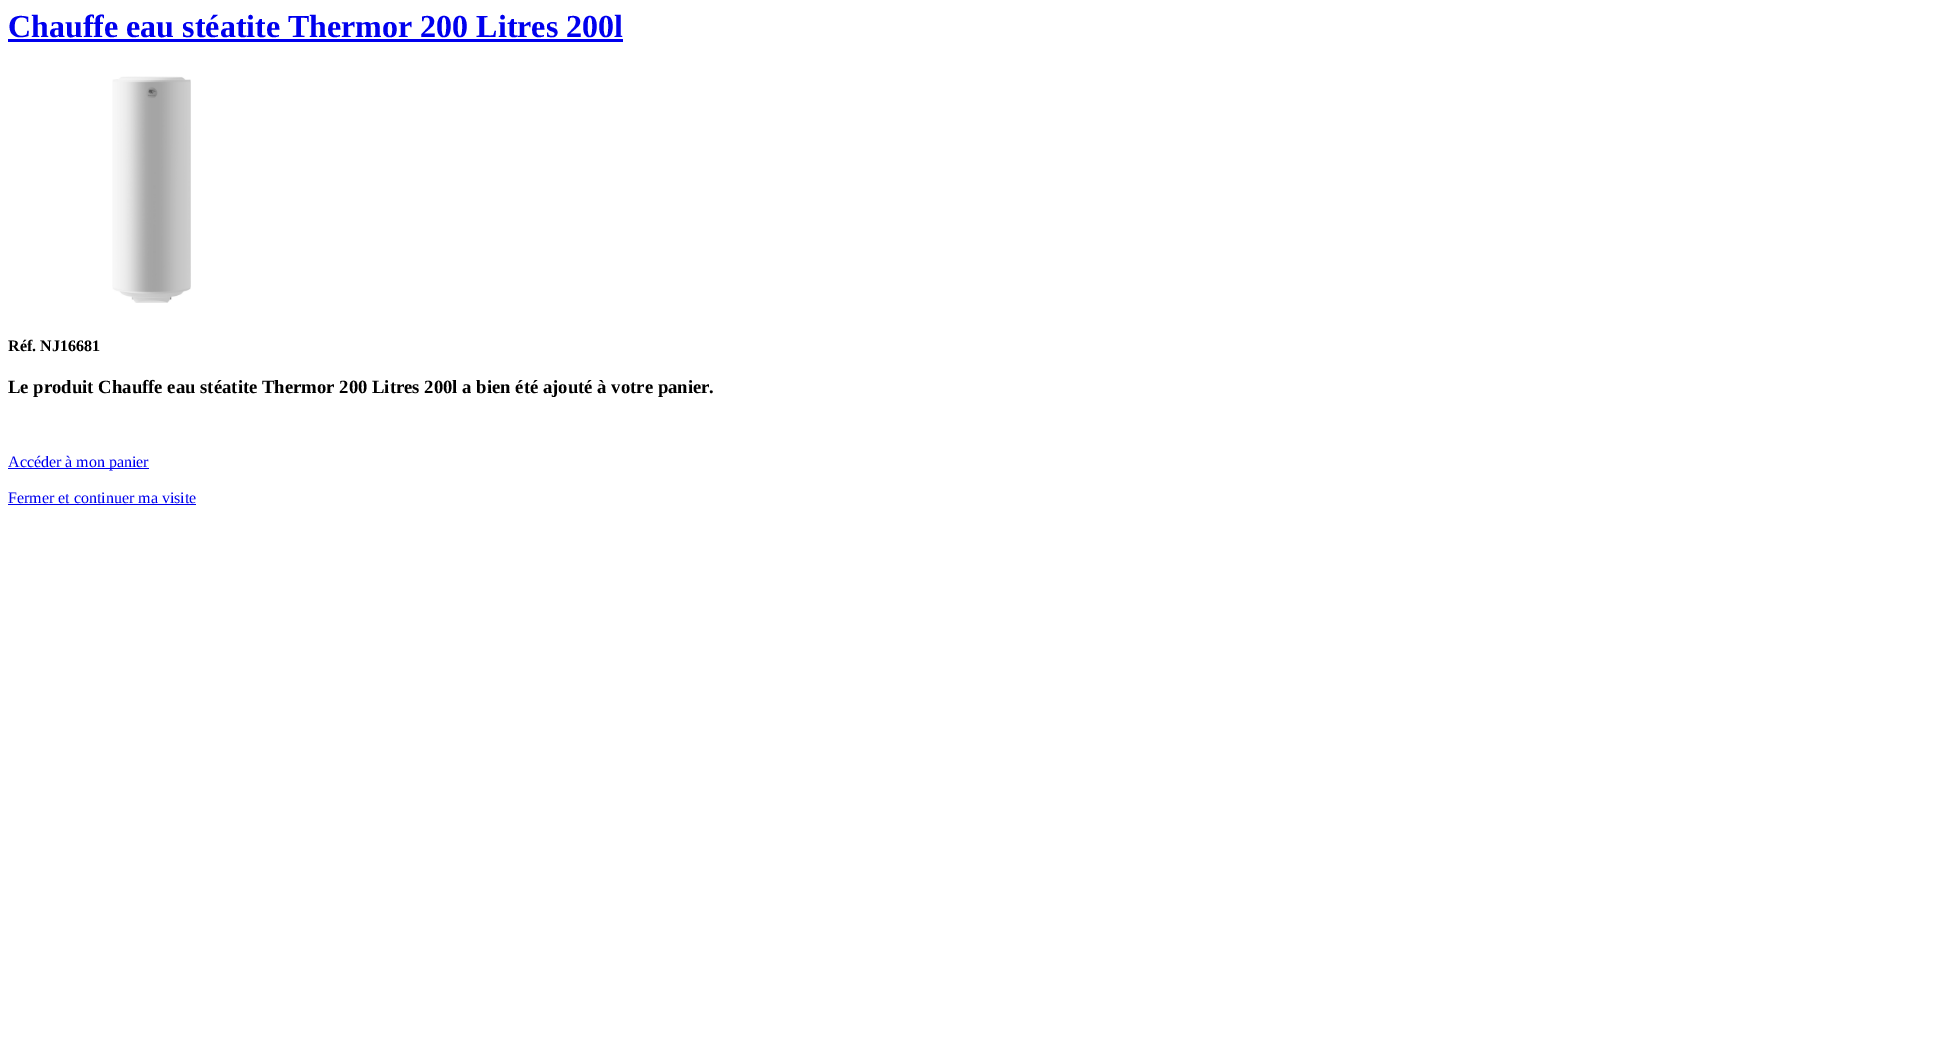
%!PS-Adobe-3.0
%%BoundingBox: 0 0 1956 1044
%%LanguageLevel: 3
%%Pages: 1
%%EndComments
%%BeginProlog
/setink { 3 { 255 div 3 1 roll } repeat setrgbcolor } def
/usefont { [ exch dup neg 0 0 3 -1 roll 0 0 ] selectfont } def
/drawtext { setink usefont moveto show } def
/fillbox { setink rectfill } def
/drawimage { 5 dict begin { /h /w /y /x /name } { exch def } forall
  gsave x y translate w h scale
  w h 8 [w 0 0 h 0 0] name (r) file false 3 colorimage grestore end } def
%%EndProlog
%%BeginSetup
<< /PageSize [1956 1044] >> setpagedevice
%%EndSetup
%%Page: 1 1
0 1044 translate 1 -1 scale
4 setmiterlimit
0 0 1956 1044 255 255 255 fillbox
(Chauffe eau stéatite Thermor 200 Litres 200l) 8 37 /LiberationSerif-Bold 32 0 0 238 drawtext
8 39 615 3 0 0 238 fillbox
(assets/img1.rgb) 112 76 79 227 drawimage
(Réf. NJ16681) 8 351 /LiberationSerif-Bold 16 0 0 0 drawtext
(Le produit Chauffe eau stéatite Thermor 200 Litres 200l a bien été ajouté à votre panier.) 8 393 /LiberationSerif-Bold 18.7 0 0 0 drawtext
8 468 141 1 0 0 238 fillbox
(Accéder à mon panier) 8 467 /LiberationSerif-Regular 16 0 0 238 drawtext
(Fermer et continuer ma visite) 8 503 /LiberationSerif-Regular 16 0 0 238 drawtext
8 504 188 1 0 0 238 fillbox
showpage
%%EOF
